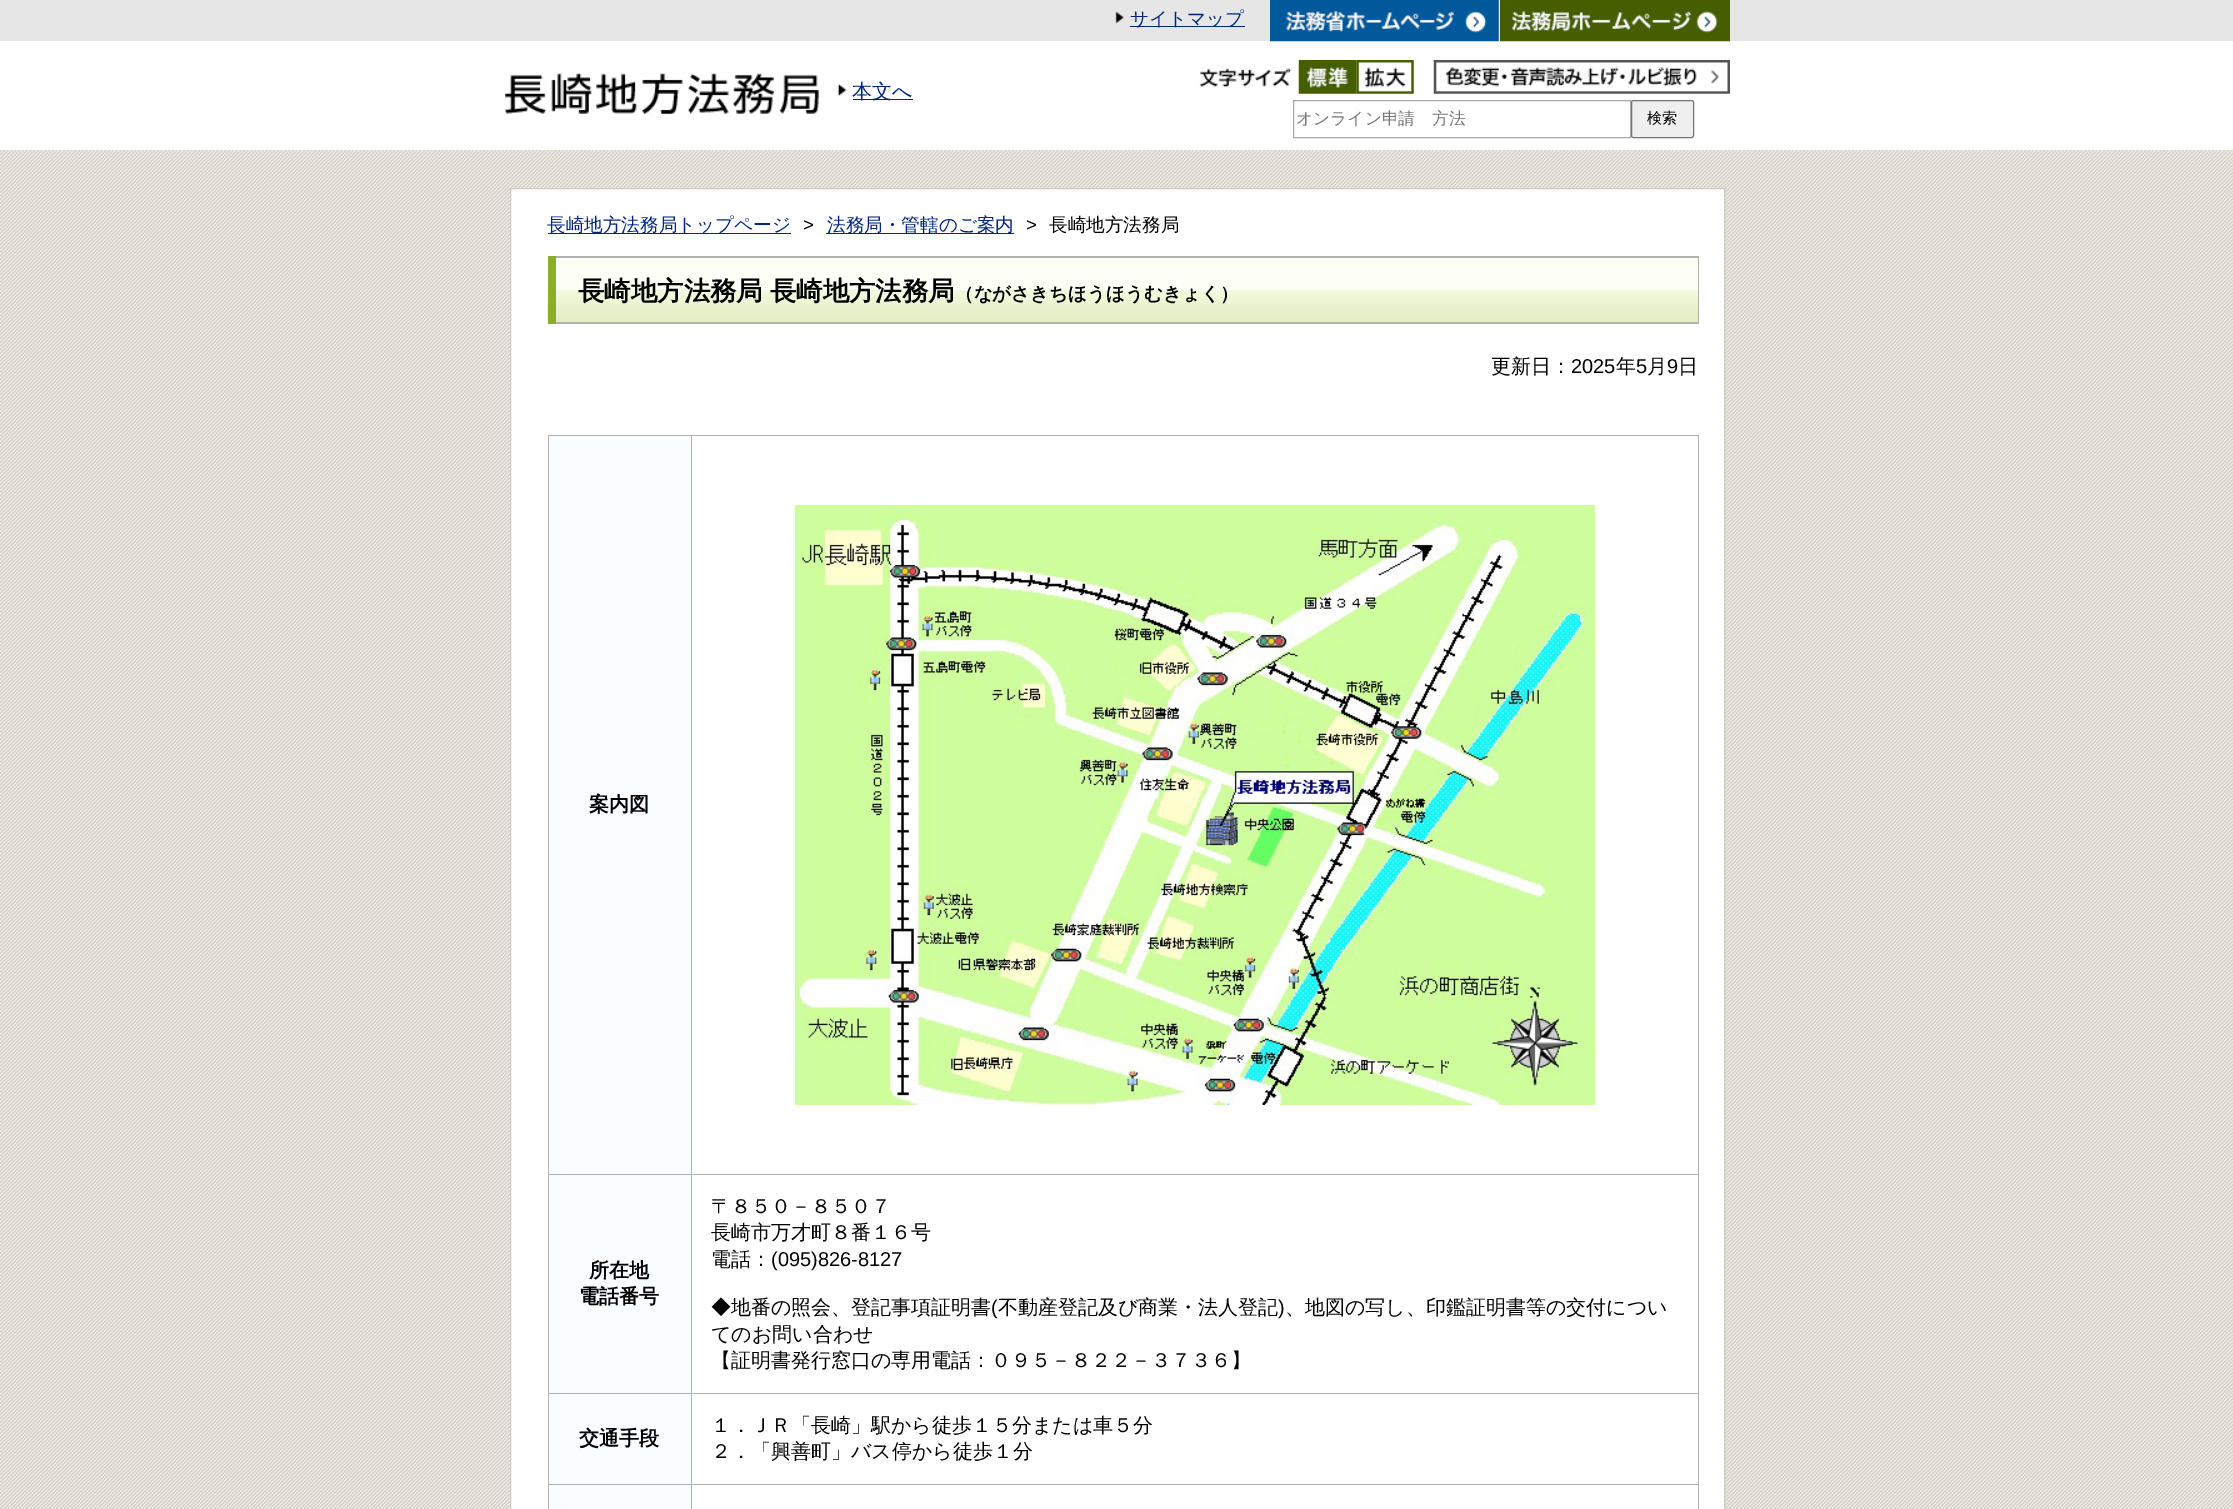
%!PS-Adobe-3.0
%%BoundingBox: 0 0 2233 1509
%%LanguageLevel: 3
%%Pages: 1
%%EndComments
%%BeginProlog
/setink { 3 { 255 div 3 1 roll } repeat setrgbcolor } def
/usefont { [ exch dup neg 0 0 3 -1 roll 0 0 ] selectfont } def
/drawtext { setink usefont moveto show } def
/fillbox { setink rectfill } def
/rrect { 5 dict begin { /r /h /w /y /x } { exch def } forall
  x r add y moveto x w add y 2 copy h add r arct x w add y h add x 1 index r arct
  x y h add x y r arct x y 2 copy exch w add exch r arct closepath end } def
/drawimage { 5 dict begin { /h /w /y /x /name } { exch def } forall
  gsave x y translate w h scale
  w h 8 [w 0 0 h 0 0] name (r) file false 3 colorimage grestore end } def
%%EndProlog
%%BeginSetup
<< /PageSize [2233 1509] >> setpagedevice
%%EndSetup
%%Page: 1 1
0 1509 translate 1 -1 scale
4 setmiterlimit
0 0 2233 1509 255 255 255 fillbox
0 0 2233 41 230 230 230 fillbox
(assets/img1.rgb) 1115 11 9 13 drawimage
1130 26 115 1 0 38 122 fillbox
(サイトマップ) 1130 25 /WenQuanYiZenHei-Medium 18.6 0 38 122 drawtext
(assets/img2.rgb) 1270 0 229 42 drawimage
(assets/img3.rgb) 1500 0 230 42 drawimage
(assets/img4.rgb) 505 73 314 41 drawimage
(assets/img5.rgb) 837 83 10 13 drawimage
853 99 60 1 0 38 122 fillbox
(本文へ) 852 98 /WenQuanYiZenHei-Medium 20 0 38 122 drawtext
(assets/img6.rgb) 1199 68 93 20 drawimage
(assets/img7.rgb) 1298 60 59 34 drawimage
(assets/img8.rgb) 1356 60 58 34 drawimage
(assets/img9.rgb) 1433 60 297 34 drawimage
169 169 169 setink
1293.5 100.5 337 37 rectstroke
(オンライン申請　方法) 1296 124 /WenQuanYiZenHei-Medium 16.75 117 117 117 drawtext
239 239 239 setink
1631.5 100.5 62 37 2 rrect gsave fill grestore
118 118 118 setink
stroke
(検索) 1647 123 /WenQuanYiZenHei-Medium 15 0 0 0 drawtext
(assets/img10.rgb) 0 150 2233 1359 drawimage
255 255 255 setink
510.5 188.5 moveto 1724.5 188.5 lineto 1724.5 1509.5 lineto 510.5 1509.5 lineto closepath gsave fill grestore
203 203 203 setink
stroke
548 233 243 1 0 38 122 fillbox
(長崎地方法務局トップページ) 547 231 /WenQuanYiZenHei-Medium 18.6 0 38 122 drawtext
(>) 803 231 /LiberationSans-Regular 18.6 0 0 0 drawtext
826 233 188 1 0 38 122 fillbox
(法務局・管轄のご案内) 827 231 /WenQuanYiZenHei-Medium 18.6 0 38 122 drawtext
(>) 1026 231 /LiberationSans-Regular 18.6 0 0 0 drawtext
(長崎地方法務局) 1049 231 /WenQuanYiZenHei-Medium 18.6 0 0 0 drawtext
(assets/img11.rgb) 547 257 1151 66 drawimage
177 177 177 setink
548 256 moveto 1699 256 lineto 1698 258 lineto 556 258 lineto closepath fill
1698 256 1 68 177 177 177 fillbox
1699 324 moveto 548 324 lineto 556 322 lineto 1698 322 lineto closepath fill
548 256 8 68 138 175 39 fillbox
/WenQuanYiZenHei-Bold 26.4 usefont
0 0 0 setink
578 300 moveto -1 0 32 (長崎地方法務局 長崎地方法務局) widthshow
(（ながさきちほうほうむきょく）) 955 300 /WenQuanYiZenHei-Bold 18.5 0 0 0 drawtext
(更新日：) 1491 373 /WenQuanYiZenHei-Medium 20 0 0 0 drawtext
(2025) 1571 373 /LiberationSans-Regular 20 0 0 0 drawtext
(年) 1616 373 /WenQuanYiZenHei-Medium 20 0 0 0 drawtext
(5) 1636 373 /LiberationSans-Regular 20 0 0 0 drawtext
(月) 1647 373 /WenQuanYiZenHei-Medium 20 0 0 0 drawtext
(9) 1667 373 /LiberationSans-Regular 20 0 0 0 drawtext
(日) 1678 373 /WenQuanYiZenHei-Medium 20 0 0 0 drawtext
549 436 142 738 250 253 255 fillbox
691 435 1008 1 177 177 177 fillbox
691 1174 1008 1 177 177 177 fillbox
691 1393 1008 1 177 177 177 fillbox
691 1484 1008 1 177 177 177 fillbox
691 1484 1 25 177 177 177 fillbox
548 1484 145 1 177 177 177 fillbox
691 1393 1 92 177 177 177 fillbox
548 1393 145 1 177 177 177 fillbox
691 1174 1 220 177 177 177 fillbox
548 1174 145 1 177 177 177 fillbox
691 435 1 740 177 177 177 fillbox
548 435 145 1 177 177 177 fillbox
548 1484 1 25 177 177 177 fillbox
548 1393 1 92 177 177 177 fillbox
548 1174 1 220 177 177 177 fillbox
548 435 1 740 177 177 177 fillbox
(案内図) 589 811 /WenQuanYiZenHei-Bold 20 0 0 0 drawtext
1698 1484 1 25 177 177 177 fillbox
1698 1393 1 92 177 177 177 fillbox
1698 1174 1 220 177 177 177 fillbox
1698 435 1 740 177 177 177 fillbox
(assets/img12.rgb) 795 505 800 600 drawimage
549 1175 142 218 250 253 255 fillbox
(所在地) 589 1277 /WenQuanYiZenHei-Bold 20 0 0 0 drawtext
(電話番号) 579 1303 /WenQuanYiZenHei-Bold 20 0 0 0 drawtext
(〒８５０－８５０７) 711 1213 /WenQuanYiZenHei-Medium 20 0 0 0 drawtext
(長崎市万才町８番１６号) 711 1239 /WenQuanYiZenHei-Medium 20 0 0 0 drawtext
(電話：) 711 1266 /WenQuanYiZenHei-Medium 20 0 0 0 drawtext
(\(095\)826-8127) 771 1266 /LiberationSans-Regular 20 0 0 0 drawtext
(◆地番の照会、登記事項証明書) 711 1314 /WenQuanYiZenHei-Medium 20 0 0 0 drawtext
(\() 991 1314 /LiberationSans-Regular 20 0 0 0 drawtext
(不動産登記及び商業・法人登記) 998 1314 /WenQuanYiZenHei-Medium 20 0 0 0 drawtext
(\)) 1278 1314 /LiberationSans-Regular 20 0 0 0 drawtext
(、地図の写し、印鑑証明書等の交付につい) 1285 1314 /WenQuanYiZenHei-Medium 20 0 0 0 drawtext
(てのお問い合わせ) 711 1341 /WenQuanYiZenHei-Medium 20 0 0 0 drawtext
(【証明書発行窓口の専用電話：０９５－８２２－３７３６】) 711 1367 /WenQuanYiZenHei-Medium 20 0 0 0 drawtext
549 1394 142 90 250 253 255 fillbox
(交通手段) 579 1445 /WenQuanYiZenHei-Bold 20 0 0 0 drawtext
(１．ＪＲ「長崎」駅から徒歩１５分または車５分) 711 1432 /WenQuanYiZenHei-Medium 20 0 0 0 drawtext
(２．「興善町」バス停から徒歩１分) 711 1458 /WenQuanYiZenHei-Medium 20 0 0 0 drawtext
549 1485 142 24 250 253 255 fillbox
showpage
%%EOF
